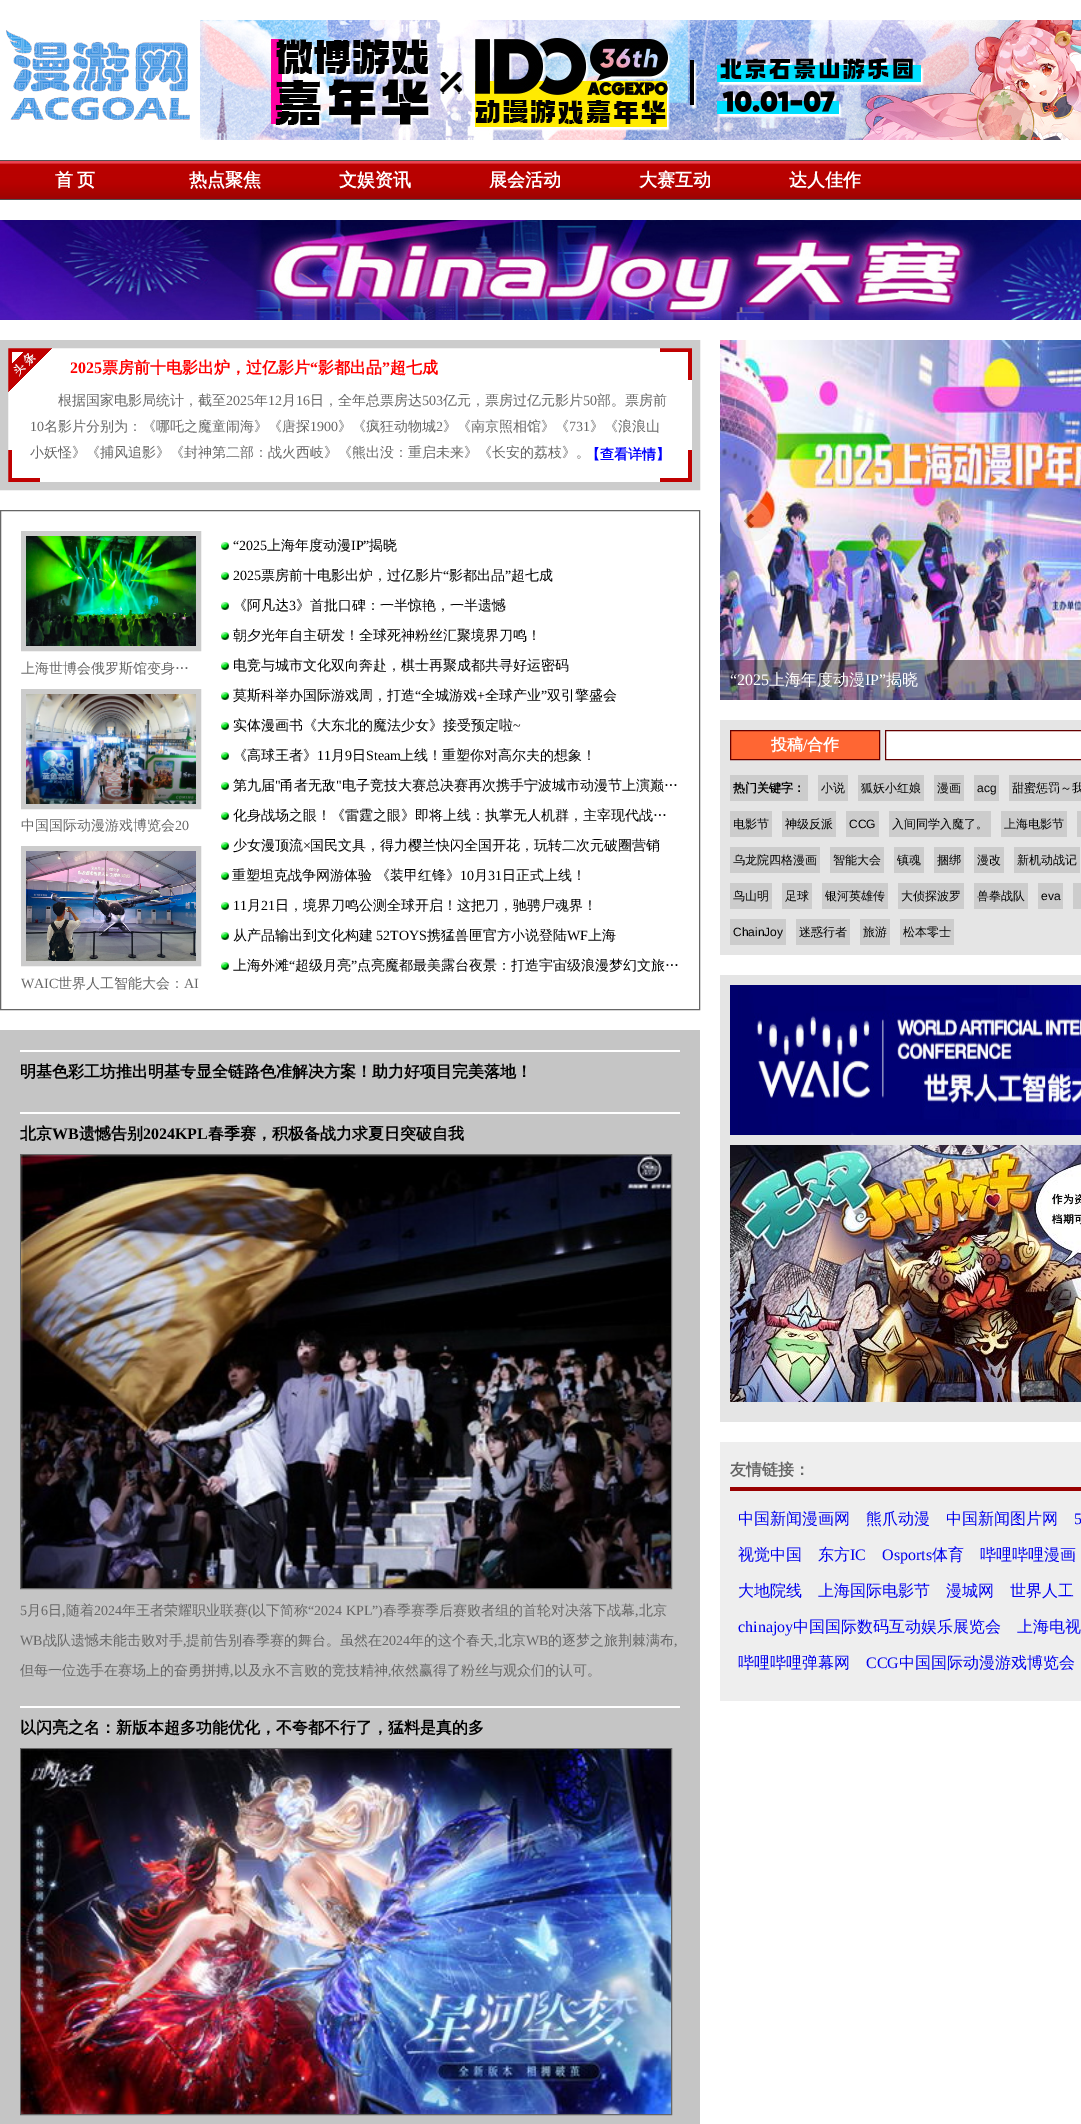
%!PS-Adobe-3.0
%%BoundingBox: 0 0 1081 2124
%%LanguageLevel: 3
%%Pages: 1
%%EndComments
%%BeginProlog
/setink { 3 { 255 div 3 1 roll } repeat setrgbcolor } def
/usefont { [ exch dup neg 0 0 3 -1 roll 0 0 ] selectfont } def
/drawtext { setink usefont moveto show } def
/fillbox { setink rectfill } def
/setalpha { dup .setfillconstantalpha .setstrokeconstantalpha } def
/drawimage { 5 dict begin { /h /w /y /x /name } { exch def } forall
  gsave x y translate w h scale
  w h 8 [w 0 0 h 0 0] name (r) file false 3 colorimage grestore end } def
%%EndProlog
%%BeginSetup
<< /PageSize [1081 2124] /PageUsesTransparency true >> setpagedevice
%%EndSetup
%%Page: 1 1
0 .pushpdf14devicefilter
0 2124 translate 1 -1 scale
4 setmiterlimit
0 0 1081 2124 255 255 255 fillbox
(assets/img1.rgb) 6 30 184 90 drawimage
(assets/img2.rgb) 200 20 881 120 drawimage
(assets/img3.rgb) 0 160 1081 40 drawimage
(首) 55 186 /WenQuanYiZenHei-Bold 18 255 255 255 drawtext
(页) 77 186 /WenQuanYiZenHei-Bold 18 255 255 255 drawtext
(热点聚焦) 189 186 /WenQuanYiZenHei-Bold 18 255 255 255 drawtext
(文娱资讯) 339 186 /WenQuanYiZenHei-Bold 18 255 255 255 drawtext
(展会活动) 489 186 /WenQuanYiZenHei-Bold 18 255 255 255 drawtext
(大赛互动) 639 186 /WenQuanYiZenHei-Bold 18 255 255 255 drawtext
(达人佳作) 789 186 /WenQuanYiZenHei-Bold 18 255 255 255 drawtext
(assets/img4.rgb) 0 220 1081 100 drawimage
(assets/img5.rgb) 8 348 684 134 drawimage
204 204 204 setink
8 setlinewidth
4 344 692 142 rectstroke
(2025) 70 373 /LiberationSerif-Bold 16 255 0 0 drawtext
(票房前十电影出炉，过亿影片) 102 373 /WenQuanYiZenHei-Bold 16 255 0 0 drawtext
(“) 310 373 /LiberationSerif-Bold 16 255 0 0 drawtext
(影都出品) 318 373 /WenQuanYiZenHei-Bold 16 255 0 0 drawtext
(”) 382 373 /LiberationSerif-Bold 16 255 0 0 drawtext
(超七成) 390 373 /WenQuanYiZenHei-Bold 16 255 0 0 drawtext
(根据国家电影局统计，截至) 58 405 /WenQuanYiZenHei-Medium 14 102 102 102 drawtext
(2025) 226 405 /LiberationSerif-Regular 14 102 102 102 drawtext
(年) 254 405 /WenQuanYiZenHei-Medium 14 102 102 102 drawtext
(12) 268 405 /LiberationSerif-Regular 14 102 102 102 drawtext
(月) 282 405 /WenQuanYiZenHei-Medium 14 102 102 102 drawtext
(16) 296 405 /LiberationSerif-Regular 14 102 102 102 drawtext
(日，全年总票房达) 310 405 /WenQuanYiZenHei-Medium 14 102 102 102 drawtext
(503) 422 405 /LiberationSerif-Regular 14 102 102 102 drawtext
(亿元，票房过亿元影片) 443 405 /WenQuanYiZenHei-Medium 14 102 102 102 drawtext
(50) 583 405 /LiberationSerif-Regular 14 102 102 102 drawtext
(部。票房前) 597 405 /WenQuanYiZenHei-Medium 14 102 102 102 drawtext
(10) 30 431 /LiberationSerif-Regular 14 102 102 102 drawtext
(名影片分别为：《哪吒之魔童闹海》《唐探) 44 431 /WenQuanYiZenHei-Medium 14 102 102 102 drawtext
(1900) 310 431 /LiberationSerif-Regular 14 102 102 102 drawtext
(》《疯狂动物城) 338 431 /WenQuanYiZenHei-Medium 14 102 102 102 drawtext
(2) 436 431 /LiberationSerif-Regular 14 102 102 102 drawtext
(》《南京照相馆》《) 443 431 /WenQuanYiZenHei-Medium 14 102 102 102 drawtext
(731) 569 431 /LiberationSerif-Regular 14 102 102 102 drawtext
(》《浪浪山) 590 431 /WenQuanYiZenHei-Medium 14 102 102 102 drawtext
(小妖怪》《捕风追影》《封神第二部：战火西岐》《熊出没：重启未来》《长安的荔枝》。) 30 457 /WenQuanYiZenHei-Medium 14 102 102 102 drawtext
(【查看详情】) 586 459 /WenQuanYiZenHei-Bold 14 0 0 255 drawtext
102 102 102 setink
1 setlinewidth
0.5 510.5 699 499 rectstroke
204 204 204 setink
5 setlinewidth
23.5 533.5 175 115 rectstroke
(assets/img6.rgb) 26 536 170 110 drawimage
(上海世博会俄罗斯馆变身…) 21 673 /WenQuanYiZenHei-Medium 14 102 102 102 drawtext
204 204 204 setink
23.5 691.5 175 115 rectstroke
(assets/img7.rgb) 26 694 170 110 drawimage
(中国国际动漫游戏博览会) 21 830 /WenQuanYiZenHei-Medium 14 102 102 102 drawtext
(20) 175 830 /LiberationSerif-Regular 14 102 102 102 drawtext
204 204 204 setink
23.5 848.5 175 115 rectstroke
(assets/img8.rgb) 26 851 170 110 drawimage
(WAIC) 21 988 /LiberationSerif-Regular 14 102 102 102 drawtext
(世界人工智能大会：) 58 988 /WenQuanYiZenHei-Medium 14 102 102 102 drawtext
(AI) 184 988 /LiberationSerif-Regular 14 102 102 102 drawtext
(assets/img9.rgb) 221 542 8 8 drawimage
(“2025) 233 550 /LiberationSerif-Regular 14 0 0 0 drawtext
(上海年度动漫) 267 550 /WenQuanYiZenHei-Medium 14 0 0 0 drawtext
(IP”) 351 550 /LiberationSerif-Regular 14 0 0 0 drawtext
(揭晓) 369 550 /WenQuanYiZenHei-Medium 14 0 0 0 drawtext
(assets/img9.rgb) 221 572 8 8 drawimage
(2025) 233 580 /LiberationSerif-Regular 14 0 0 0 drawtext
(票房前十电影出炉，过亿影片) 261 580 /WenQuanYiZenHei-Medium 14 0 0 0 drawtext
(“) 443 580 /LiberationSerif-Regular 14 0 0 0 drawtext
(影都出品) 449 580 /WenQuanYiZenHei-Medium 14 0 0 0 drawtext
(”) 505 580 /LiberationSerif-Regular 14 0 0 0 drawtext
(超七成) 511 580 /WenQuanYiZenHei-Medium 14 0 0 0 drawtext
(assets/img9.rgb) 221 602 8 8 drawimage
(《阿凡达) 233 610 /WenQuanYiZenHei-Medium 14 0 0 0 drawtext
(3) 289 610 /LiberationSerif-Regular 14 0 0 0 drawtext
(》首批口碑：一半惊艳，一半遗憾) 296 610 /WenQuanYiZenHei-Medium 14 0 0 0 drawtext
(assets/img9.rgb) 221 632 8 8 drawimage
(朝夕光年自主研发！全球死神粉丝汇聚境界刀鸣！) 233 640 /WenQuanYiZenHei-Medium 14 0 0 0 drawtext
(assets/img9.rgb) 221 662 8 8 drawimage
(电竞与城市文化双向奔赴，棋士再聚成都共寻好运密码) 233 670 /WenQuanYiZenHei-Medium 14 0 0 0 drawtext
(assets/img9.rgb) 221 692 8 8 drawimage
(莫斯科举办国际游戏周，打造) 233 700 /WenQuanYiZenHei-Medium 14 0 0 0 drawtext
(“) 415 700 /LiberationSerif-Regular 14 0 0 0 drawtext
(全城游戏) 421 700 /WenQuanYiZenHei-Medium 14 0 0 0 drawtext
(+) 477 700 /LiberationSerif-Regular 14 0 0 0 drawtext
(全球产业) 485 700 /WenQuanYiZenHei-Medium 14 0 0 0 drawtext
(”) 541 700 /LiberationSerif-Regular 14 0 0 0 drawtext
(双引擎盛会) 547 700 /WenQuanYiZenHei-Medium 14 0 0 0 drawtext
(assets/img9.rgb) 221 722 8 8 drawimage
(实体漫画书《大东北的魔法少女》接受预定啦) 233 730 /WenQuanYiZenHei-Medium 14 0 0 0 drawtext
(~) 513 730 /LiberationSerif-Regular 14 0 0 0 drawtext
(assets/img9.rgb) 221 752 8 8 drawimage
(《高球王者》) 233 760 /WenQuanYiZenHei-Medium 14 0 0 0 drawtext
(11) 317 760 /LiberationSerif-Regular 14 0 0 0 drawtext
(月) 331 760 /WenQuanYiZenHei-Medium 14 0 0 0 drawtext
(9) 345 760 /LiberationSerif-Regular 14 0 0 0 drawtext
(日) 352 760 /WenQuanYiZenHei-Medium 14 0 0 0 drawtext
(Steam) 366 760 /LiberationSerif-Regular 14 0 0 0 drawtext
(上线！重塑你对高尔夫的想象！) 400 760 /WenQuanYiZenHei-Medium 14 0 0 0 drawtext
(assets/img9.rgb) 221 782 8 8 drawimage
(第九届) 233 790 /WenQuanYiZenHei-Medium 14 0 0 0 drawtext
(") 275 790 /LiberationSerif-Regular 14 0 0 0 drawtext
(甬者无敌) 280 790 /WenQuanYiZenHei-Medium 14 0 0 0 drawtext
(") 336 790 /LiberationSerif-Regular 14 0 0 0 drawtext
(电子竞技大赛总决赛再次携手宁波城市动漫节上演巅…) 342 790 /WenQuanYiZenHei-Medium 14 0 0 0 drawtext
(assets/img9.rgb) 221 812 8 8 drawimage
(化身战场之眼！《雷霆之眼》即将上线：执掌无人机群，主宰现代战…) 233 820 /WenQuanYiZenHei-Medium 14 0 0 0 drawtext
(assets/img9.rgb) 221 842 8 8 drawimage
(少女漫顶流) 233 850 /WenQuanYiZenHei-Medium 14 0 0 0 drawtext
(×) 303 850 /LiberationSerif-Regular 14 0 0 0 drawtext
(国民文具，得力樱兰快闪全国开花，玩转二次元破圈营销) 310 850 /WenQuanYiZenHei-Medium 14 0 0 0 drawtext
(assets/img9.rgb) 221 872 8 8 drawimage
(重塑坦克战争网游体验 《装甲红锋》) 232 880 /WenQuanYiZenHei-Medium 14 0 0 0 drawtext
(10) 460 880 /LiberationSerif-Regular 14 0 0 0 drawtext
(月) 474 880 /WenQuanYiZenHei-Medium 14 0 0 0 drawtext
(31) 488 880 /LiberationSerif-Regular 14 0 0 0 drawtext
(日正式上线！) 502 880 /WenQuanYiZenHei-Medium 14 0 0 0 drawtext
(assets/img9.rgb) 221 902 8 8 drawimage
(11) 233 910 /LiberationSerif-Regular 14 0 0 0 drawtext
(月) 247 910 /WenQuanYiZenHei-Medium 14 0 0 0 drawtext
(21) 261 910 /LiberationSerif-Regular 14 0 0 0 drawtext
(日，境界刀鸣公测全球开启！这把刀，驰骋尸魂界！) 275 910 /WenQuanYiZenHei-Medium 14 0 0 0 drawtext
(assets/img9.rgb) 221 932 8 8 drawimage
(从产品输出到文化构建) 233 940 /WenQuanYiZenHei-Medium 14 0 0 0 drawtext
(52TOYS) 376 940 /LiberationSerif-Regular 14 0 0 0 drawtext
(携猛兽匣官方小说登陆) 427 940 /WenQuanYiZenHei-Medium 14 0 0 0 drawtext
(WF) 567 940 /LiberationSerif-Regular 14 0 0 0 drawtext
(上海) 588 940 /WenQuanYiZenHei-Medium 14 0 0 0 drawtext
(assets/img9.rgb) 221 962 8 8 drawimage
(上海外滩) 233 970 /WenQuanYiZenHei-Medium 14 0 0 0 drawtext
(“) 289 970 /LiberationSerif-Regular 14 0 0 0 drawtext
(超级月亮) 295 970 /WenQuanYiZenHei-Medium 14 0 0 0 drawtext
(”) 351 970 /LiberationSerif-Regular 14 0 0 0 drawtext
(点亮魔都最美露台夜景：打造宇宙级浪漫梦幻文旅…) 357 970 /WenQuanYiZenHei-Medium 14 0 0 0 drawtext
0 1030 700 1094 197 197 197 fillbox
20 1050 660 2 255 255 255 fillbox
(明基色彩工坊推出明基专显全链路色准解决方案！助力好项目完美落地！) 20 1077 /WenQuanYiZenHei-Bold 16 0 0 0 drawtext
20 1112 660 2 255 255 255 fillbox
(北京) 20 1139 /WenQuanYiZenHei-Bold 16 0 0 0 drawtext
(WB) 52 1139 /LiberationSerif-Bold 16 0 0 0 drawtext
(遗憾告别) 79 1139 /WenQuanYiZenHei-Bold 16 0 0 0 drawtext
(2024KPL) 143 1139 /LiberationSerif-Bold 16 0 0 0 drawtext
(春季赛，积极备战力求夏日突破自我) 208 1139 /WenQuanYiZenHei-Bold 16 0 0 0 drawtext
102 102 102 setink
1 setlinewidth
20.5 1154.5 651 434 rectstroke
(assets/img10.rgb) 21 1155 650 433 drawimage
(5) 20 1615 /LiberationSerif-Regular 14 102 102 102 drawtext
(月) 27 1615 /WenQuanYiZenHei-Medium 14 102 102 102 drawtext
(6) 41 1615 /LiberationSerif-Regular 14 102 102 102 drawtext
(日) 48 1615 /WenQuanYiZenHei-Medium 14 102 102 102 drawtext
(,) 62 1615 /LiberationSerif-Regular 14 102 102 102 drawtext
(随着) 66 1615 /WenQuanYiZenHei-Medium 14 102 102 102 drawtext
(2024) 94 1615 /LiberationSerif-Regular 14 102 102 102 drawtext
(年王者荣耀职业联赛) 122 1615 /WenQuanYiZenHei-Medium 14 102 102 102 drawtext
(\() 248 1615 /LiberationSerif-Regular 14 102 102 102 drawtext
(以下简称) 252 1615 /WenQuanYiZenHei-Medium 14 102 102 102 drawtext
(“2024 KPL”\)) 308 1615 /LiberationSerif-Regular 14 102 102 102 drawtext
(春季赛季后赛败者组的首轮对决落下战幕) 383 1615 /WenQuanYiZenHei-Medium 14 102 102 102 drawtext
(,) 635 1615 /LiberationSerif-Regular 14 102 102 102 drawtext
(北京) 639 1615 /WenQuanYiZenHei-Medium 14 102 102 102 drawtext
(WB) 20 1645 /LiberationSerif-Regular 14 102 102 102 drawtext
(战队遗憾未能击败对手) 43 1645 /WenQuanYiZenHei-Medium 14 102 102 102 drawtext
(,) 183 1645 /LiberationSerif-Regular 14 102 102 102 drawtext
(提前告别春季赛的舞台。虽然在) 186 1645 /WenQuanYiZenHei-Medium 14 102 102 102 drawtext
(2024) 382 1645 /LiberationSerif-Regular 14 102 102 102 drawtext
(年的这个春天) 410 1645 /WenQuanYiZenHei-Medium 14 102 102 102 drawtext
(,) 494 1645 /LiberationSerif-Regular 14 102 102 102 drawtext
(北京) 498 1645 /WenQuanYiZenHei-Medium 14 102 102 102 drawtext
(WB) 526 1645 /LiberationSerif-Regular 14 102 102 102 drawtext
(的逐梦之旅荆棘满布) 548 1645 /WenQuanYiZenHei-Medium 14 102 102 102 drawtext
(,) 674 1645 /LiberationSerif-Regular 14 102 102 102 drawtext
(但每一位选手在赛场上的奋勇拼搏) 20 1675 /WenQuanYiZenHei-Medium 14 102 102 102 drawtext
(,) 230 1675 /LiberationSerif-Regular 14 102 102 102 drawtext
(以及永不言败的竞技精神) 234 1675 /WenQuanYiZenHei-Medium 14 102 102 102 drawtext
(,) 388 1675 /LiberationSerif-Regular 14 102 102 102 drawtext
(依然赢得了粉丝与观众们的认可。) 391 1675 /WenQuanYiZenHei-Medium 14 102 102 102 drawtext
20 1706 660 2 255 255 255 fillbox
(以闪亮之名：新版本超多功能优化，不夸都不行了，猛料是真的多) 20 1733 /WenQuanYiZenHei-Bold 16 0 0 0 drawtext
102 102 102 setink
20.5 1748.5 651 366 rectstroke
(assets/img11.rgb) 21 1749 650 365 drawimage
(assets/img12.rgb) 720 340 361 360 drawimage
(assets/img13.rgb) 730 500 41 41 drawimage
0.4 setalpha
720 660 361 40 0 0 0 fillbox
1 setalpha
(“2025) 730 685 /LiberationSerif-Regular 16 255 255 255 drawtext
(上海年度动漫) 769 685 /WenQuanYiZenHei-Medium 16 255 255 255 drawtext
(IP”) 865 685 /LiberationSerif-Regular 16 255 255 255 drawtext
(揭晓) 886 685 /WenQuanYiZenHei-Medium 16 255 255 255 drawtext
720 720 361 235 229 229 229 fillbox
255 102 51 setink
730.5 730.5 moveto 879.5 730.5 lineto 879.5 759.5 lineto 730.5 759.5 lineto closepath gsave fill grestore
102 0 0 setink
stroke
(投稿) 771 750 /WenQuanYiZenHei-Bold 16 255 255 255 drawtext
(/) 803 750 /LiberationSerif-Bold 16 255 255 255 drawtext
(合作) 807 750 /WenQuanYiZenHei-Bold 16 255 255 255 drawtext
885.5 730.5 moveto 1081.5 730.5 lineto 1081.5 759.5 lineto 885.5 759.5 lineto closepath gsave fill grestore
102 0 0 setink
stroke
730 775 78 26 204 204 204 fillbox
(热门关键字：) 733 792 /WenQuanYiZenHei-Bold 12 0 0 0 drawtext
818 775 30 26 204 204 204 fillbox
(小说) 821 792 /WenQuanYiZenHei-Medium 12 0 0 0 drawtext
858 775 66 26 204 204 204 fillbox
(狐妖小红娘) 861 792 /WenQuanYiZenHei-Medium 12 0 0 0 drawtext
934 775 30 26 204 204 204 fillbox
(漫画) 937 792 /WenQuanYiZenHei-Medium 12 0 0 0 drawtext
974 775 25 26 204 204 204 fillbox
(acg) 977 792 /LiberationSans-Regular 12 0 0 0 drawtext
1009 775 72 26 204 204 204 fillbox
(甜蜜惩罚～我) 1012 792 /WenQuanYiZenHei-Medium 12 0 0 0 drawtext
730 811 42 26 204 204 204 fillbox
(电影节) 733 828 /WenQuanYiZenHei-Medium 12 0 0 0 drawtext
782 811 54 26 204 204 204 fillbox
(神级反派) 785 828 /WenQuanYiZenHei-Medium 12 0 0 0 drawtext
846 811 33 26 204 204 204 fillbox
(CCG) 849 828 /LiberationSans-Regular 12 0 0 0 drawtext
889 811 102 26 204 204 204 fillbox
(入间同学入魔了。) 892 828 /WenQuanYiZenHei-Medium 12 0 0 0 drawtext
1001 811 66 26 204 204 204 fillbox
(上海电影节) 1004 828 /WenQuanYiZenHei-Medium 12 0 0 0 drawtext
1077 811 4 26 204 204 204 fillbox
730 847 90 26 204 204 204 fillbox
(乌龙院四格漫画) 733 864 /WenQuanYiZenHei-Medium 12 0 0 0 drawtext
830 847 54 26 204 204 204 fillbox
(智能大会) 833 864 /WenQuanYiZenHei-Medium 12 0 0 0 drawtext
894 847 30 26 204 204 204 fillbox
(镇魂) 897 864 /WenQuanYiZenHei-Medium 12 0 0 0 drawtext
934 847 30 26 204 204 204 fillbox
(捆绑) 937 864 /WenQuanYiZenHei-Medium 12 0 0 0 drawtext
974 847 30 26 204 204 204 fillbox
(漫改) 977 864 /WenQuanYiZenHei-Medium 12 0 0 0 drawtext
1014 847 66 26 204 204 204 fillbox
(新机动战记) 1017 864 /WenQuanYiZenHei-Medium 12 0 0 0 drawtext
730 883 42 26 204 204 204 fillbox
(鸟山明) 733 900 /WenQuanYiZenHei-Medium 12 0 0 0 drawtext
782 883 30 26 204 204 204 fillbox
(足球) 785 900 /WenQuanYiZenHei-Medium 12 0 0 0 drawtext
822 883 66 26 204 204 204 fillbox
(银河英雄传) 825 900 /WenQuanYiZenHei-Medium 12 0 0 0 drawtext
898 883 66 26 204 204 204 fillbox
(大侦探波罗) 901 900 /WenQuanYiZenHei-Medium 12 0 0 0 drawtext
974 883 54 26 204 204 204 fillbox
(兽拳战队) 977 900 /WenQuanYiZenHei-Medium 12 0 0 0 drawtext
1038 883 25 26 204 204 204 fillbox
(eva) 1041 900 /LiberationSans-Regular 12 0 0 0 drawtext
1073 883 8 26 204 204 204 fillbox
730 919 56 26 204 204 204 fillbox
(ChainJoy) 733 936 /LiberationSans-Regular 12 0 0 0 drawtext
796 919 54 26 204 204 204 fillbox
(迷惑行者) 799 936 /WenQuanYiZenHei-Medium 12 0 0 0 drawtext
860 919 30 26 204 204 204 fillbox
(旅游) 863 936 /WenQuanYiZenHei-Medium 12 0 0 0 drawtext
900 919 54 26 204 204 204 fillbox
(松本零士) 903 936 /WenQuanYiZenHei-Medium 12 0 0 0 drawtext
720 975 361 447 229 229 229 fillbox
(assets/img14.rgb) 730 985 351 150 drawimage
(assets/img15.rgb) 730 1145 351 257 drawimage
720 1442 361 259 238 238 238 fillbox
730 1487 351 4 153 0 0 fillbox
(友情链接：) 730 1475 /WenQuanYiZenHei-Bold 16 102 102 102 drawtext
(中国新闻漫画网) 738 1524 /WenQuanYiZenHei-Medium 16 0 0 238 drawtext
(熊爪动漫) 866 1524 /WenQuanYiZenHei-Medium 16 0 0 238 drawtext
(中国新闻图片网) 946 1524 /WenQuanYiZenHei-Medium 16 0 0 238 drawtext
(5) 1074 1524 /LiberationSerif-Regular 16 0 0 238 drawtext
(视觉中国) 738 1560 /WenQuanYiZenHei-Medium 16 0 0 238 drawtext
(东方) 818 1560 /WenQuanYiZenHei-Medium 16 0 0 238 drawtext
(IC) 850 1560 /LiberationSerif-Regular 16 0 0 238 drawtext
(Osports) 882 1560 /LiberationSerif-Regular 16 0 0 238 drawtext
(体育) 932 1560 /WenQuanYiZenHei-Medium 16 0 0 238 drawtext
(哔哩哔哩漫画) 980 1560 /WenQuanYiZenHei-Medium 16 0 0 238 drawtext
(大地院线) 738 1596 /WenQuanYiZenHei-Medium 16 0 0 238 drawtext
(上海国际电影节) 818 1596 /WenQuanYiZenHei-Medium 16 0 0 238 drawtext
(漫城网) 946 1596 /WenQuanYiZenHei-Medium 16 0 0 238 drawtext
(世界人工) 1010 1596 /WenQuanYiZenHei-Medium 16 0 0 238 drawtext
(chinajoy) 738 1632 /LiberationSerif-Regular 16 0 0 238 drawtext
(中国国际数码互动娱乐展览会) 793 1632 /WenQuanYiZenHei-Medium 16 0 0 238 drawtext
(上海电视) 1017 1632 /WenQuanYiZenHei-Medium 16 0 0 238 drawtext
(哔哩哔哩弹幕网) 738 1668 /WenQuanYiZenHei-Medium 16 0 0 238 drawtext
(CCG) 866 1668 /LiberationSerif-Regular 16 0 0 238 drawtext
(中国国际动漫游戏博览会) 899 1668 /WenQuanYiZenHei-Medium 16 0 0 238 drawtext
.poppdf14devicefilter showpage
%%EOF
